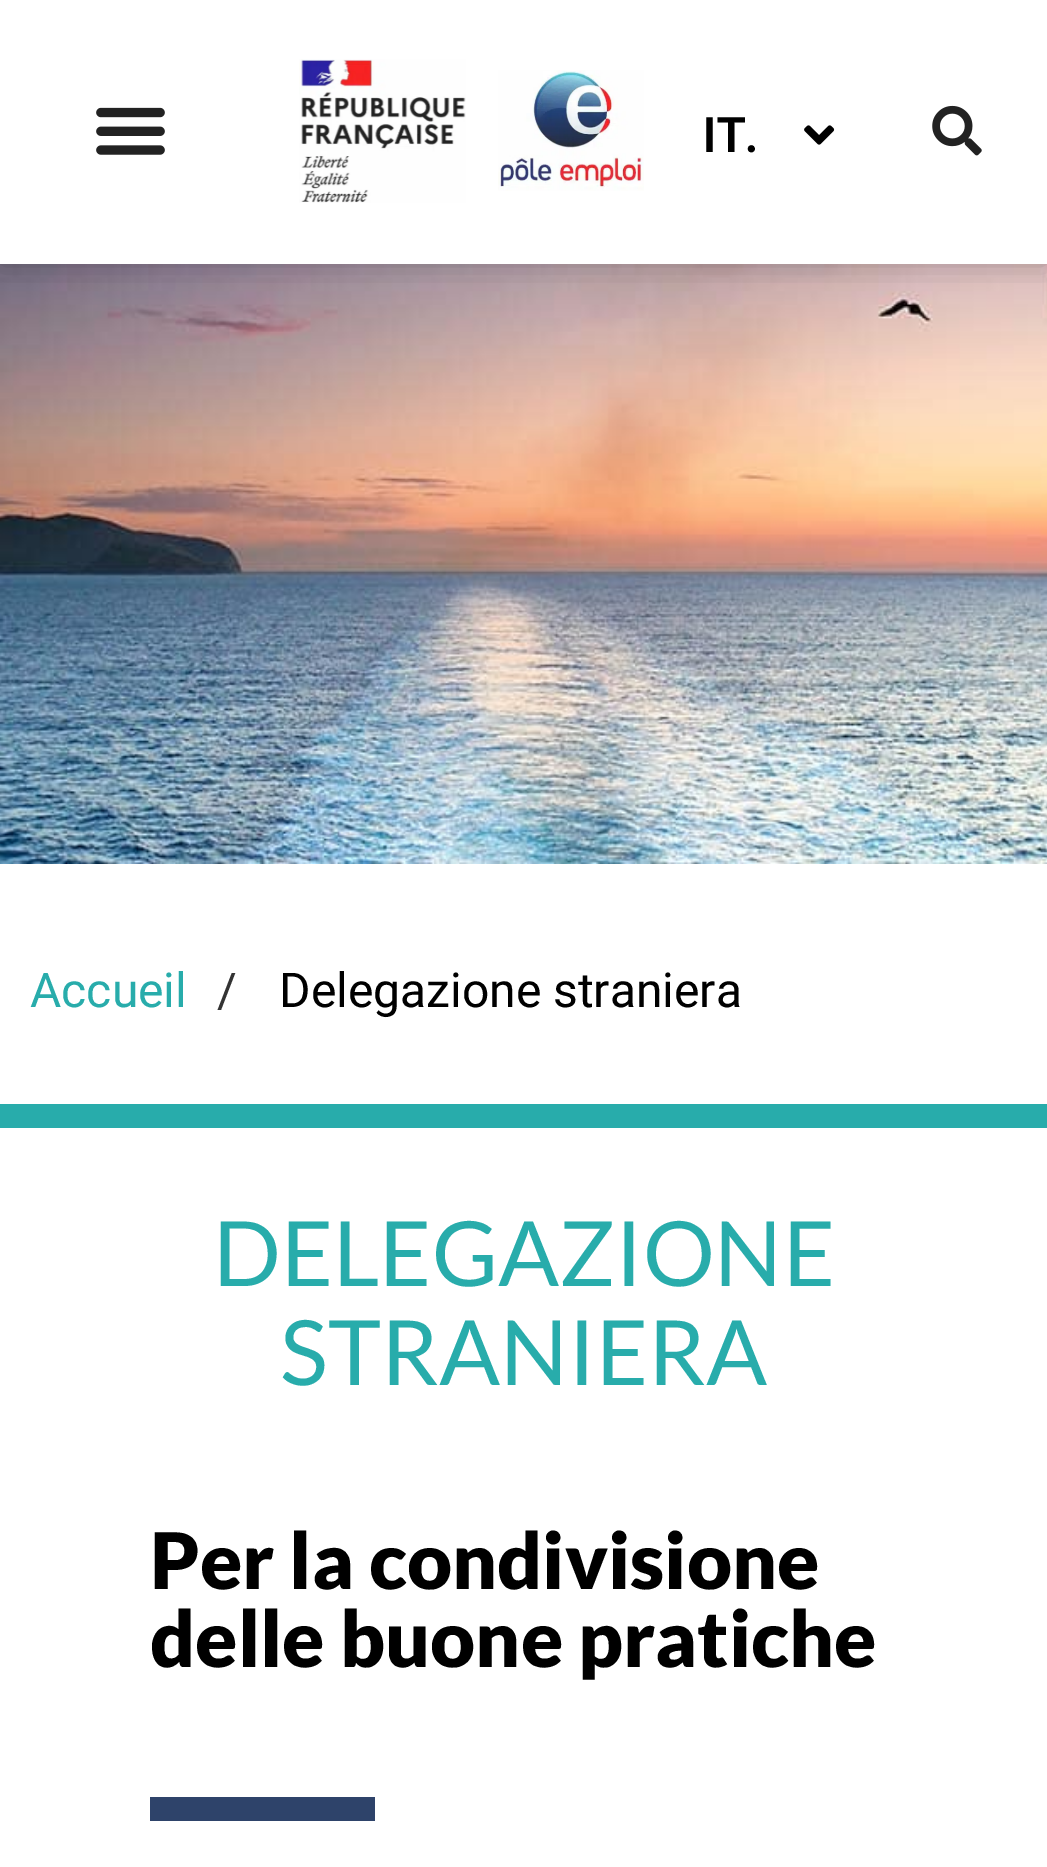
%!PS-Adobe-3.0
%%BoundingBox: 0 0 1047 1867
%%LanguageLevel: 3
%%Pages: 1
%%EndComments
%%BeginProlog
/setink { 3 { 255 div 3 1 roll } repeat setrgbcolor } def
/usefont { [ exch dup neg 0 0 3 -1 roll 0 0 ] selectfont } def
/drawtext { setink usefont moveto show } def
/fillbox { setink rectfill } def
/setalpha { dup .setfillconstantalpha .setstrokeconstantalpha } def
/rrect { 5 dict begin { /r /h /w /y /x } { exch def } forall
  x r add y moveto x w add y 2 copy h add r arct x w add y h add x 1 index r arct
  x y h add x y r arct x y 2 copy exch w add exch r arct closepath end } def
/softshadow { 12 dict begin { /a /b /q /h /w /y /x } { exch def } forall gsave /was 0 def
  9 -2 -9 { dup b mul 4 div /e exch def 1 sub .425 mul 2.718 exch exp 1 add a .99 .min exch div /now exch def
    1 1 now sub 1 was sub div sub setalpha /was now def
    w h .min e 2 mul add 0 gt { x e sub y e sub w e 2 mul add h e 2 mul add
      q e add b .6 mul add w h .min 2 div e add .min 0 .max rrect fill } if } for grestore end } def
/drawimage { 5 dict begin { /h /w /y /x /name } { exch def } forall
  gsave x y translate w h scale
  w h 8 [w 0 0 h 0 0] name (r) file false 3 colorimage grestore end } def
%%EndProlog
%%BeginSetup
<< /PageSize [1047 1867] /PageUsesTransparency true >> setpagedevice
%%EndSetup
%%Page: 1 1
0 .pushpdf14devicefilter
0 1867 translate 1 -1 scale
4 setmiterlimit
0 0 1047 1867 255 255 255 fillbox
(assets/img6.rgb) 0 264 1047 600 drawimage
gsave
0 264 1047 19 rectclip
0 0 0 setink
0 0 1047 264 0 15 0.2 softshadow
grestore
(assets/img1.rgb) 96 107 69 48 drawimage
(assets/img2.rgb) 299 59 167 144 drawimage
(assets/img3.rgb) 498 70 146 121 drawimage
(IT.) 702 152 /Lato-Bold 48 0 0 0 drawtext
(assets/img4.rgb) 804 125 31 20 drawimage
(assets/img5.rgb) 932 105 50 51 drawimage
(Accueil) 30 1007 /Roboto-Regular 48 40 172 171 drawtext
(/) 217 1007 /Roboto-Regular 48 51 51 51 drawtext
(Delegazione straniera) 279 1007 /Roboto-Regular 48 0 0 0 drawtext
0 1104 1047 24 40 172 171 fillbox
(DELEGAZIONE) 213 1286 /Lato-Regular 90 40 172 171 drawtext
(STRANIERA) 280 1385 /Lato-Regular 90 40 172 171 drawtext
(Per la condivisione) 150 1589 /Lato-Black 78 0 0 0 drawtext
(delle buone pratiche) 150 1667 /Lato-Black 78 0 0 0 drawtext
150 1797 225 24 46 67 106 fillbox
.poppdf14devicefilter showpage
%%EOF
